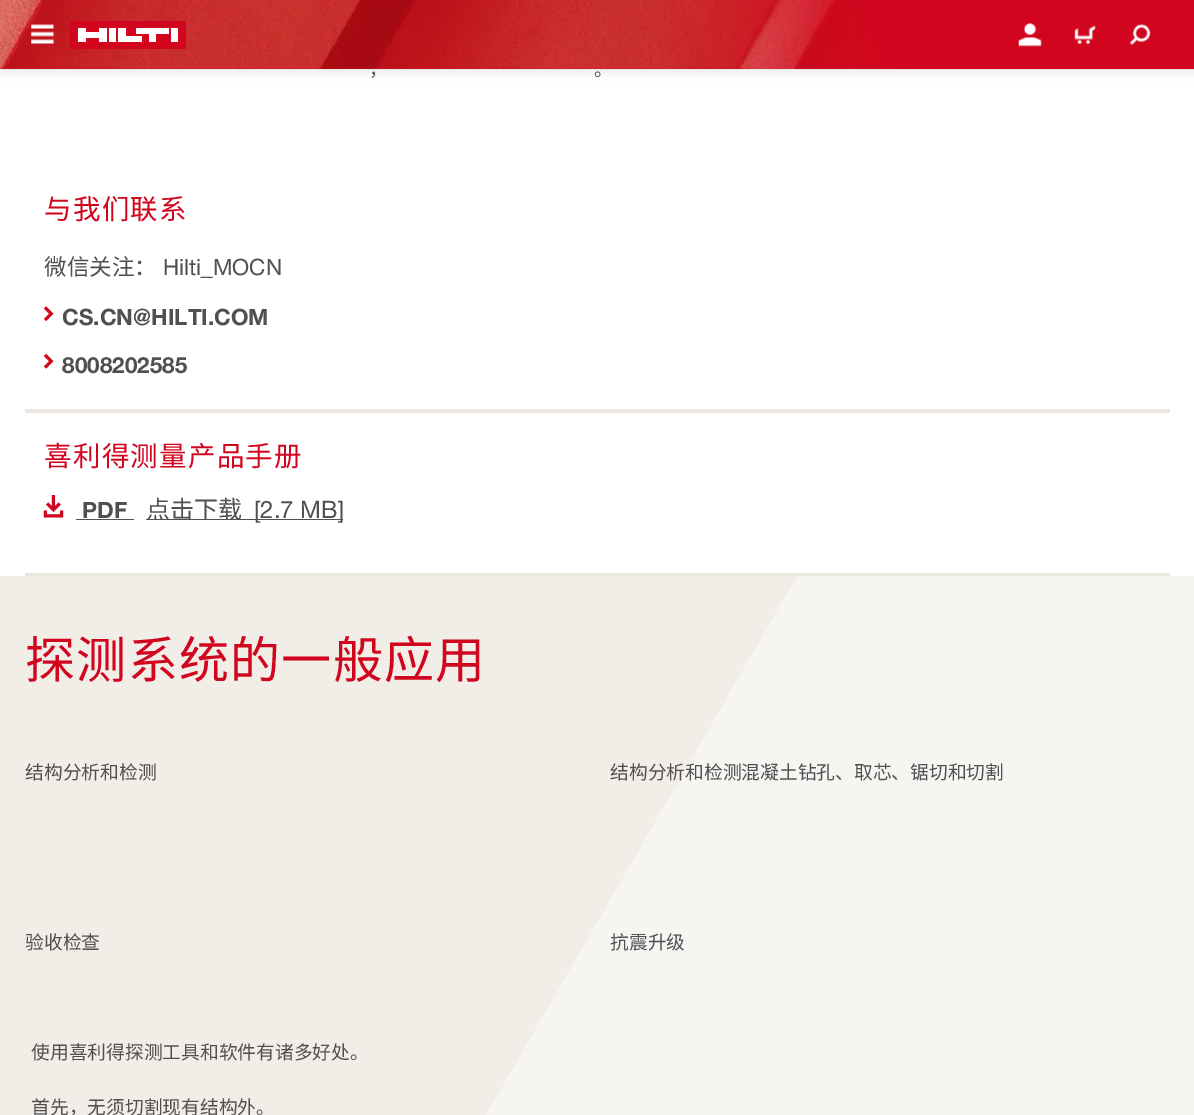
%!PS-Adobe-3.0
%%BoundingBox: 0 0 1194 1115
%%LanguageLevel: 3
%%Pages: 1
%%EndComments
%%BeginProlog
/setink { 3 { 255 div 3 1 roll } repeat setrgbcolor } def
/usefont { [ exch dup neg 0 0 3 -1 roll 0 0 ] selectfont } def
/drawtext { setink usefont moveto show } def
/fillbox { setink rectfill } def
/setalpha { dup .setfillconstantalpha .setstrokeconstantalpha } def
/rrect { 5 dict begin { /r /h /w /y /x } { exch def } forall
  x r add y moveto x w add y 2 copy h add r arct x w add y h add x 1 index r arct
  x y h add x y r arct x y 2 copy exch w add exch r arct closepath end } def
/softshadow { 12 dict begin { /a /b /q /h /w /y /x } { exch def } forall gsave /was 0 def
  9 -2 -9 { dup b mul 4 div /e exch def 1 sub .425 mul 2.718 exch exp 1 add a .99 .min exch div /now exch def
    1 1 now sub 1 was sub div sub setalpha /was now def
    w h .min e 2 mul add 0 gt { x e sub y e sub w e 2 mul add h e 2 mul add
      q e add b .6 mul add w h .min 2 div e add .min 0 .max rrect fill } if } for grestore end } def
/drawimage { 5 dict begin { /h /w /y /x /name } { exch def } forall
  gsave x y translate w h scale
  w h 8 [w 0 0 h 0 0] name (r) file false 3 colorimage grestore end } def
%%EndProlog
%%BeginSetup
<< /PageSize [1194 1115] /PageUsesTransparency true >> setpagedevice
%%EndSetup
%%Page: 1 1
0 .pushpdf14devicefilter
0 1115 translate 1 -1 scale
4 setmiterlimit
0 0 1194 1115 255 255 255 fillbox
0 0 0 setink
-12 -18 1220 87 0 6 0.15 softshadow
0 0 1194 69 210 5 30 fillbox
(assets/img1.rgb) 0 0 897 69 drawimage
(assets/img2.rgb) 31 24 24 20 drawimage
70 21 116 28 210 5 30 fillbox
255 255 255 setink
116 42 moveto 109 42 lineto 109 28 lineto 116 28 lineto closepath 178 28 moveto 171 28 lineto 171 42 lineto 178 42 lineto closepath 78 42 moveto 86 42 lineto 86 38 lineto 99 38 lineto 99 42 lineto 107 42 lineto 107 28 lineto 99 28 lineto 99 32 lineto 86 32 lineto 86 28 lineto 78 28 lineto closepath 118 42 moveto 142 42 lineto 142 36 lineto 126 36 lineto 126 28 lineto 118 28 lineto closepath 136 34 moveto 149 34 lineto 149 42 lineto 156 42 lineto 156 34 lineto 169 34 lineto 169 28 lineto 136 28 lineto closepath fill
(assets/img3.rgb) 1018 23 24 24 drawimage
(assets/img4.rgb) 1074 25 22 20 drawimage
(assets/img5.rgb) 1129 24 22 22 drawimage
(，) 369 76 /NotoSansCJKSC-Regular 18.75 82 79 83 drawtext
(。) 594 76 /NotoSansCJKSC-Regular 18.75 82 79 83 drawtext
25 409 1145 4 235 230 222 fillbox
/NotoSansCJKSC-Regular 27.5 usefont
210 5 30 setink
44 219 moveto 1.25 0 (与我们联系) ashow
(微信关注：) 44 275 /NotoSansCJKSC-Regular 22.5 82 79 83 drawtext
(Hilti_MOCN) 163 275 /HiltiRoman-Regular 22.5 82 79 83 drawtext
(assets/img6.rgb) 43 306 11 16 drawimage
(CS.CN@HILTI.COM) 62 325 /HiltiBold-Bold 22.5 82 79 83 drawtext
(assets/img7.rgb) 43 353 11 16 drawimage
(8008202585) 62 373 /HiltiBold-Bold 22.5 82 79 83 drawtext
25 573 1145 3 235 230 222 fillbox
/NotoSansCJKSC-Regular 27.5 usefont
210 5 30 setink
44 466 moveto 1.25 0 (喜利得测量产品手册) ashow
(assets/img8.rgb) 43 495 21 23 drawimage
(PDF) 82 518 /HiltiBold-Bold 22.5 82 79 83 drawtext
76 519 58 1 82 79 83 fillbox
146 519 197 1 82 79 83 fillbox
(点击下载) 146 518 /NotoSansCJKSC-Regular 24 82 79 83 drawtext
([2.7 MB]) 254 518 /HiltiRoman-Regular 24 82 79 83 drawtext
485 576 709 539 247 245 242 fillbox
241 238 232 setink
0 576 moveto 797 576 lineto 372 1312 lineto -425 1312 lineto closepath fill
/NotoSansCJKSC-Regular 50 usefont
210 5 30 setink
25 678 moveto 1.25 0 (探测系统的一般应用) ashow
(结构分析和检测) 25 779 /NotoSansCJKSC-Regular 18.75 82 79 83 drawtext
(结构分析和检测混凝土钻孔、取芯、锯切和切割) 610 779 /NotoSansCJKSC-Regular 18.75 82 79 83 drawtext
(验收检查) 25 949 /NotoSansCJKSC-Regular 18.75 82 79 83 drawtext
(抗震升级) 610 949 /NotoSansCJKSC-Regular 18.75 82 79 83 drawtext
(使用喜利得探测工具和软件有诸多好处。) 31 1059 /NotoSansCJKSC-Regular 18.75 82 79 83 drawtext
(首先，无须切割现有结构外。) 31 1114 /NotoSansCJKSC-Regular 18.75 82 79 83 drawtext
.poppdf14devicefilter showpage
%%EOF
